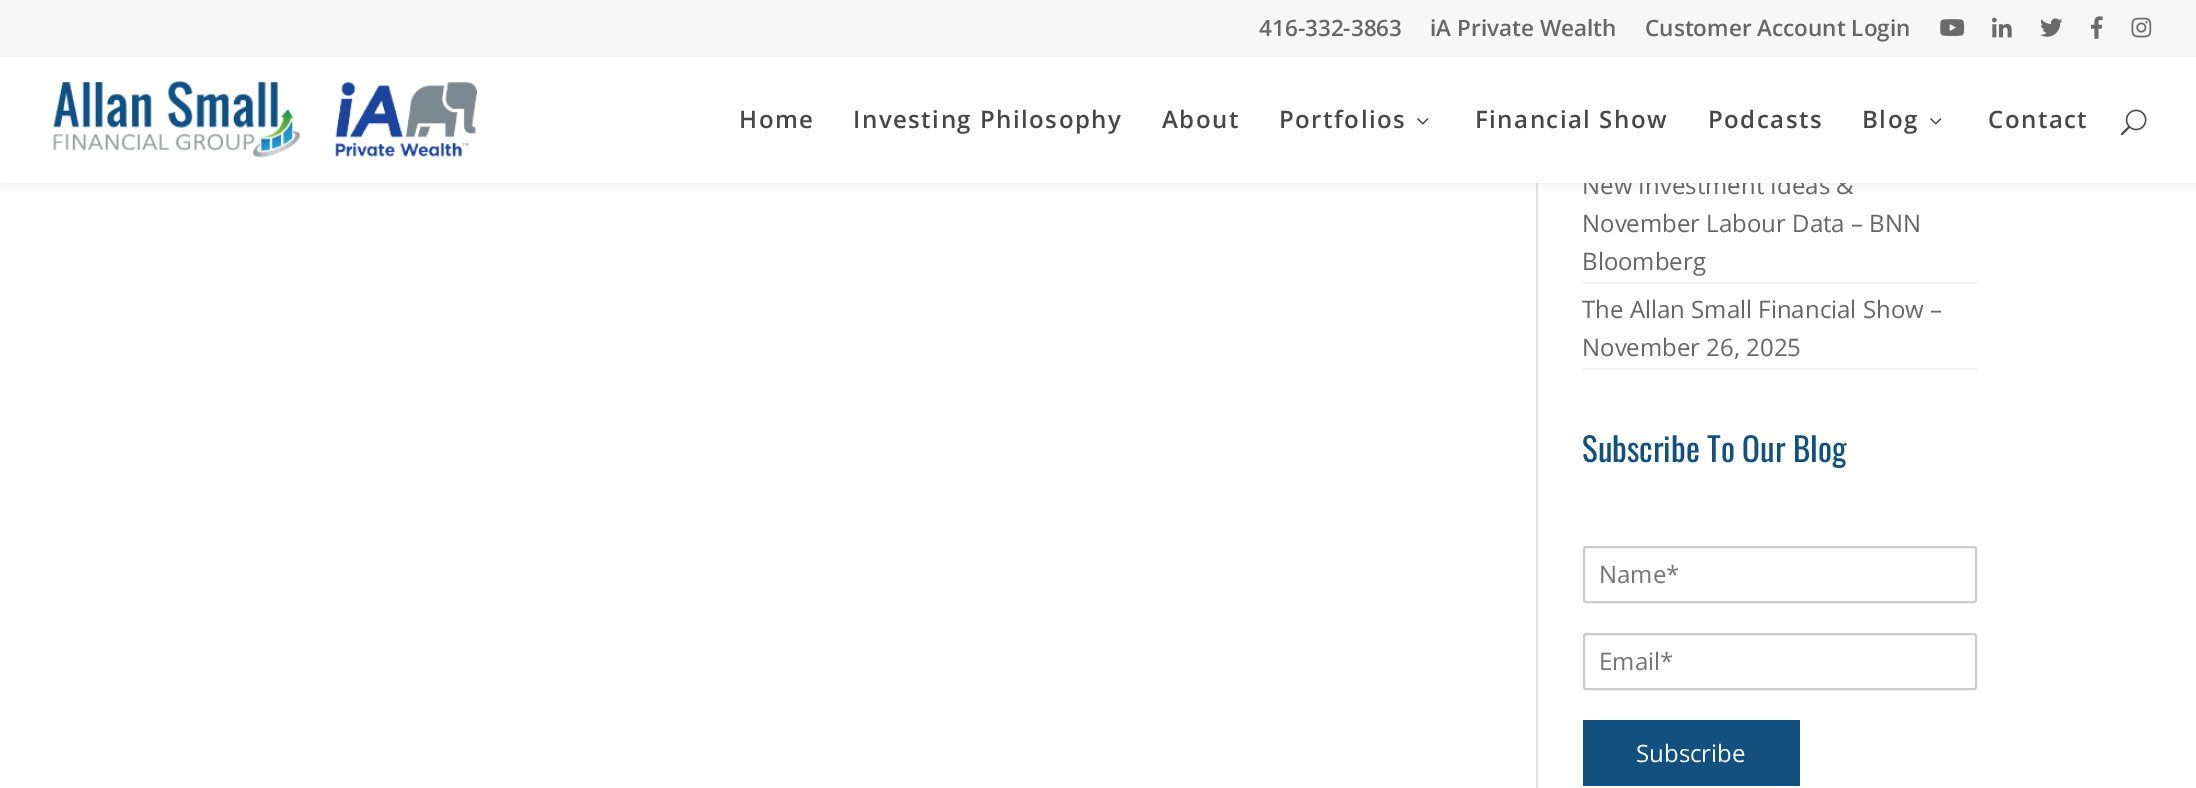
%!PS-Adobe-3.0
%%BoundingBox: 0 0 2196 788
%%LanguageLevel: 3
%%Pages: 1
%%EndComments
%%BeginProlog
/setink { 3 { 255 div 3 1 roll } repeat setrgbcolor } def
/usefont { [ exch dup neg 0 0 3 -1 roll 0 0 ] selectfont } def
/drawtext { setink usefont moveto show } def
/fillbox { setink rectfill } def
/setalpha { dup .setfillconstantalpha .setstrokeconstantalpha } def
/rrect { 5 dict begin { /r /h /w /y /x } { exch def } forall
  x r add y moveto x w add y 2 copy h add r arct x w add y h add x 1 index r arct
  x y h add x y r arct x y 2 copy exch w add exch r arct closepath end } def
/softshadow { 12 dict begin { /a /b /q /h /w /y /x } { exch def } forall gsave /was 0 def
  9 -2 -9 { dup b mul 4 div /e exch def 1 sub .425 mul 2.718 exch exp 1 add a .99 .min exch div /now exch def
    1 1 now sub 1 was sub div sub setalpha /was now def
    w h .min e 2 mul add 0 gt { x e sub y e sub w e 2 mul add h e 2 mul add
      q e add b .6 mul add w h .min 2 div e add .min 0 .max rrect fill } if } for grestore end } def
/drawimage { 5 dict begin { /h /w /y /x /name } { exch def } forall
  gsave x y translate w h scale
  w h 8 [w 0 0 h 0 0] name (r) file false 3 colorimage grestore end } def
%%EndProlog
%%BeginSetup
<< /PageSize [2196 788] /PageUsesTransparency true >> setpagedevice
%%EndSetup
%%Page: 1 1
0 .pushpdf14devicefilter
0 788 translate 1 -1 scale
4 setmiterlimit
0 0 2196 788 255 255 255 fillbox
1536 183 2 605 226 226 226 fillbox
0 0 0 setink
0 57 2196 126 0 5 0.1 softshadow
0 0 2196 57 247 247 247 fillbox
(416-332-3863) 1259 36 /OpenSans-SemiBold 22.5 102 102 102 drawtext
(iA Private Wealth) 1430 36 /OpenSans-SemiBold 22.5 102 102 102 drawtext
(Customer Account Login) 1645 36 /OpenSans-SemiBold 22.5 102 102 102 drawtext
(assets/img1.rgb) 1940 19 25 17 drawimage
(assets/img2.rgb) 1992 17 20 21 drawimage
(assets/img3.rgb) 2040 18 23 19 drawimage
(assets/img4.rgb) 2091 16 12 23 drawimage
(assets/img5.rgb) 2131 17 21 21 drawimage
(New Investment Ideas &) 1582 194 /OpenSans-Regular 24 102 102 102 drawtext
0 57 2196 126 255 255 255 fillbox
(assets/img6.rgb) 53 81 424 77 drawimage
/OpenSans-SemiBold 24 usefont
71 71 71 setink
739 128 moveto 1.5 0 (Home) ashow
853 128 moveto 1.5 0 (Investing Philosophy) ashow
1162 128 moveto 1.5 0 (About) ashow
1279 128 moveto 1.5 0 (Portfolios) ashow
(assets/img7.rgb) 1417 118 12 7 drawimage
1475 128 moveto 1.5 0 (Financial Show) ashow
1708 128 moveto 1.5 0 (Podcasts) ashow
1862 128 moveto 1.5 0 (Blog) ashow
(assets/img7.rgb) 1930 118 12 7 drawimage
1988 128 moveto 1.5 0 (Contact) ashow
(assets/img8.rgb) 2120 109 27 27 drawimage
1583 282 394 2 241 241 241 fillbox
(November Labour Data – BNN) 1582 232 /OpenSans-Regular 24 102 102 102 drawtext
(Bloomberg) 1582 270 /OpenSans-Regular 24 102 102 102 drawtext
1583 368 394 2 241 241 241 fillbox
(The Allan Small Financial Show –) 1582 318 /OpenSans-Regular 24 102 102 102 drawtext
(November 26, 2025) 1582 356 /OpenSans-Regular 24 102 102 102 drawtext
(Subscribe To Our Blog) 1582 462 /Oswald-Regular 33 18 80 127 drawtext
204 204 204 setink
2 setlinewidth
1584 547 392 55 2 rrect stroke
(Name*) 1599 583 /OpenSans-Regular 24 117 117 117 drawtext
204 204 204 setink
1584 634 392 55 2 rrect stroke
(Email*) 1599 670 /OpenSans-Regular 24 117 117 117 drawtext
1583 720 217 66 18 80 127 fillbox
(Subscribe) 1636 762 /OpenSans-Regular 24 255 255 255 drawtext
.poppdf14devicefilter showpage
%%EOF
